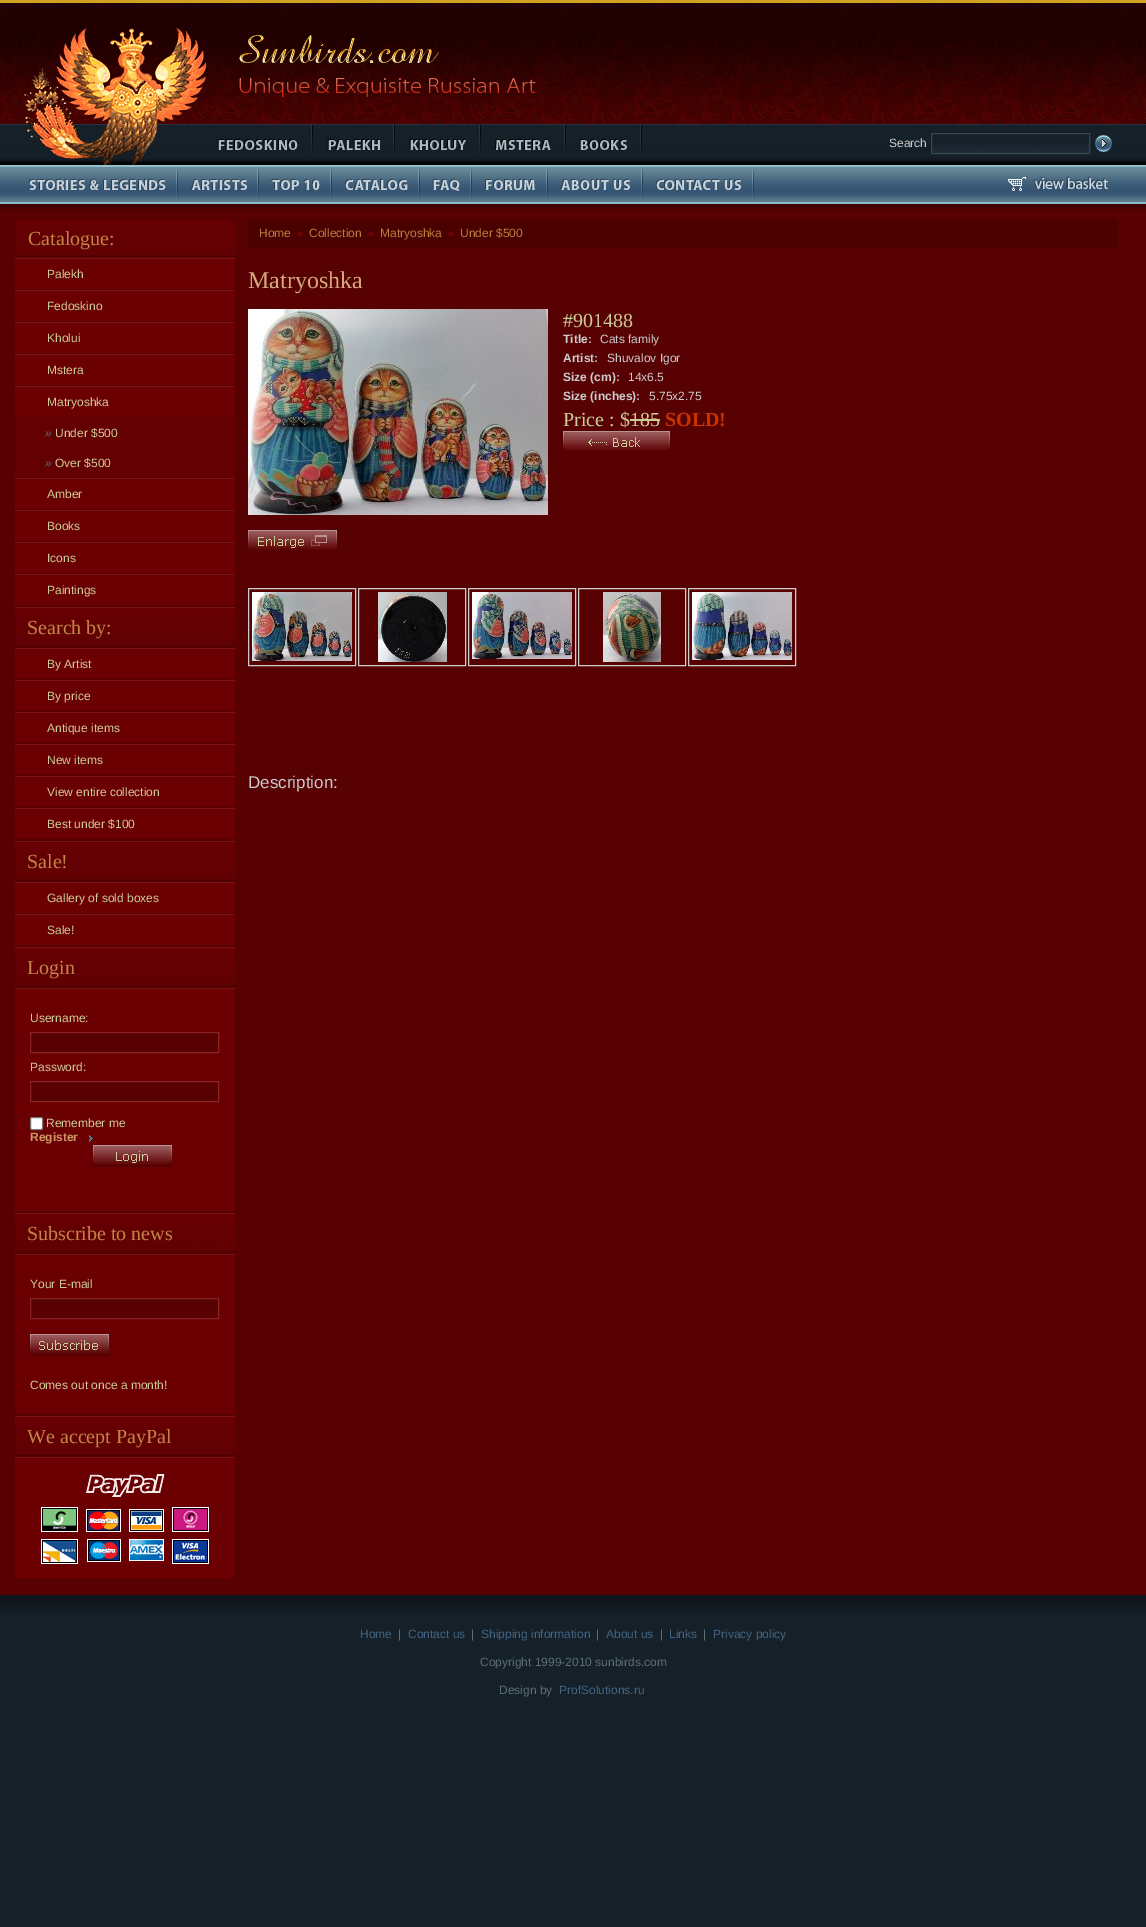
%!PS-Adobe-3.0
%%BoundingBox: 0 0 1146 1927
%%LanguageLevel: 3
%%Pages: 1
%%EndComments
%%BeginProlog
/setink { 3 { 255 div 3 1 roll } repeat setrgbcolor } def
/usefont { [ exch dup neg 0 0 3 -1 roll 0 0 ] selectfont } def
/drawtext { setink usefont moveto show } def
/fillbox { setink rectfill } def
/rrect { 5 dict begin { /r /h /w /y /x } { exch def } forall
  x r add y moveto x w add y 2 copy h add r arct x w add y h add x 1 index r arct
  x y h add x y r arct x y 2 copy exch w add exch r arct closepath end } def
/drawimage { 5 dict begin { /h /w /y /x /name } { exch def } forall
  gsave x y translate w h scale
  w h 8 [w 0 0 h 0 0] name (r) file false 3 colorimage grestore end } def
%%EndProlog
%%BeginSetup
<< /PageSize [1146 1927] >> setpagedevice
%%EndSetup
%%Page: 1 1
0 1927 translate 1 -1 scale
4 setmiterlimit
0 0 1146 1927 21 32 40 fillbox
(assets/img1.rgb) 0 0 1146 124 drawimage
(assets/img2.rgb) 24 27 183 97 drawimage
(assets/img3.rgb) 239 35 297 62 drawimage
(assets/img4.rgb) 0 124 1146 41 drawimage
(assets/img5.rgb) 26 124 132 41 drawimage
(assets/img6.rgb) 217 139 81 11 drawimage
(assets/img7.rgb) 311 125 2 30 drawimage
(assets/img8.rgb) 327 139 53 11 drawimage
(assets/img7.rgb) 393 125 2 30 drawimage
(assets/img9.rgb) 409 139 57 11 drawimage
(assets/img7.rgb) 479 125 2 30 drawimage
(assets/img10.rgb) 495 139 56 11 drawimage
(assets/img7.rgb) 564 125 2 30 drawimage
(assets/img11.rgb) 579 139 48 11 drawimage
(assets/img7.rgb) 640 125 2 30 drawimage
(Search) 889 147 /LiberationSans-Regular 12 204 204 204 drawtext
(assets/img12.rgb) 932 144 157 9 drawimage
52 72 83 setink
931.5 133.5 158 20 rectstroke
(assets/img13.rgb) 1095 135 17 17 drawimage
(assets/img14.rgb) 0 165 1146 39 drawimage
(assets/img15.rgb) 28 179 138 11 drawimage
(assets/img16.rgb) 176 167 2 32 drawimage
(assets/img17.rgb) 191 179 56 11 drawimage
(assets/img16.rgb) 257 167 2 32 drawimage
(assets/img18.rgb) 271 179 49 11 drawimage
(assets/img16.rgb) 330 167 2 32 drawimage
(assets/img19.rgb) 344 179 64 11 drawimage
(assets/img16.rgb) 418 167 2 32 drawimage
(assets/img20.rgb) 432 179 28 12 drawimage
(assets/img16.rgb) 470 167 2 32 drawimage
(assets/img21.rgb) 485 179 50 11 drawimage
(assets/img16.rgb) 546 167 2 32 drawimage
(assets/img22.rgb) 560 179 70 11 drawimage
(assets/img16.rgb) 641 167 2 32 drawimage
(assets/img23.rgb) 655 179 86 11 drawimage
(assets/img16.rgb) 752 167 2 32 drawimage
(assets/img24.rgb) 1008 176 100 15 drawimage
0 211 1146 1384 87 1 2 fillbox
(assets/img25.rgb) 0 204 1146 7 drawimage
15 257 220 1319 106 0 2 fillbox
(assets/img26.rgb) 15 1576 220 3 drawimage
(assets/img27.rgb) 15 219 220 38 drawimage
(Catalogue:) 28 245 /LiberationSerif-Regular 20 193 133 73 drawtext
15 258 220 1 118 20 22 fillbox
15 289 220 1 87 1 2 fillbox
(Palekh) 47 278 /LiberationSans-Regular 12 204 204 153 drawtext
15 290 220 1 118 20 22 fillbox
15 321 220 1 87 1 2 fillbox
(Fedoskino) 47 310 /LiberationSans-Regular 12 204 204 153 drawtext
15 322 220 1 118 20 22 fillbox
15 353 220 1 87 1 2 fillbox
(Kholui) 47 342 /LiberationSans-Regular 12 204 204 153 drawtext
15 354 220 1 118 20 22 fillbox
15 385 220 1 87 1 2 fillbox
(Mstera) 47 374 /LiberationSans-Regular 12 204 204 153 drawtext
15 386 220 1 118 20 22 fillbox
15 417 220 1 87 1 2 fillbox
(Matryoshka) 47 406 /LiberationSans-Regular 12 204 204 153 drawtext
15 418 220 60 100 0 2 fillbox
(») 45 437 /LiberationSans-Italic 12 83 116 135 drawtext
(Under $500) 55 437 /LiberationSans-Regular 12 204 204 153 drawtext
(») 45 467 /LiberationSans-Italic 12 83 116 135 drawtext
(Over $500) 55 467 /LiberationSans-Regular 12 204 204 153 drawtext
15 478 220 1 118 20 22 fillbox
15 509 220 1 87 1 2 fillbox
(Amber) 47 498 /LiberationSans-Regular 12 204 204 153 drawtext
15 510 220 1 118 20 22 fillbox
15 541 220 1 87 1 2 fillbox
(Books) 47 530 /LiberationSans-Regular 12 204 204 153 drawtext
15 542 220 1 118 20 22 fillbox
15 573 220 1 87 1 2 fillbox
(Icons) 47 562 /LiberationSans-Regular 12 204 204 153 drawtext
15 574 220 1 118 20 22 fillbox
15 605 220 2 87 1 2 fillbox
(Paintings) 47 594 /LiberationSans-Regular 12 204 204 153 drawtext
(assets/img28.rgb) 15 607 220 40 drawimage
15 647 220 1 87 1 2 fillbox
(Search by:) 27 634 /LiberationSerif-Regular 20 193 133 73 drawtext
15 648 220 1 118 20 22 fillbox
15 679 220 1 87 1 2 fillbox
(By Artist) 47 668 /LiberationSans-Regular 12 204 204 153 drawtext
15 680 220 1 118 20 22 fillbox
15 711 220 1 87 1 2 fillbox
(By price) 47 700 /LiberationSans-Regular 12 204 204 153 drawtext
15 712 220 1 118 20 22 fillbox
15 743 220 1 87 1 2 fillbox
(Antique items) 47 732 /LiberationSans-Regular 12 204 204 153 drawtext
15 744 220 1 118 20 22 fillbox
15 775 220 1 87 1 2 fillbox
(New items) 47 764 /LiberationSans-Regular 12 204 204 153 drawtext
15 776 220 1 118 20 22 fillbox
15 807 220 1 87 1 2 fillbox
(View entire collection) 47 796 /LiberationSans-Regular 12 204 204 153 drawtext
15 808 220 1 118 20 22 fillbox
15 839 220 2 87 1 2 fillbox
(Best under $100) 47 828 /LiberationSans-Regular 12 204 204 153 drawtext
(assets/img28.rgb) 15 841 220 40 drawimage
15 881 220 1 87 1 2 fillbox
(Sale!) 27 868 /LiberationSerif-Regular 20 193 133 73 drawtext
15 882 220 1 118 20 22 fillbox
15 913 220 1 87 1 2 fillbox
(Gallery of sold boxes) 47 902 /LiberationSans-Regular 12 204 204 153 drawtext
15 914 220 1 118 20 22 fillbox
15 945 220 2 87 1 2 fillbox
(Sale!) 47 934 /LiberationSans-Regular 12 204 204 153 drawtext
(assets/img28.rgb) 15 947 220 40 drawimage
15 987 220 1 87 1 2 fillbox
(Login) 27 974 /LiberationSerif-Regular 20 193 133 73 drawtext
15 988 220 1 118 20 22 fillbox
15 1211 220 2 87 1 2 fillbox
(Username:) 30 1022 /LiberationSans-Regular 12 204 204 153 drawtext
87 1 2 setink
30.5 1032.5 moveto 218.5 1032.5 lineto 218.5 1052.5 lineto 30.5 1052.5 lineto closepath gsave fill grestore
137 35 38 setink
stroke
(Password:) 30 1071 /LiberationSans-Regular 12 204 204 153 drawtext
87 1 2 setink
30.5 1081.5 moveto 218.5 1081.5 lineto 218.5 1101.5 lineto 30.5 1101.5 lineto closepath gsave fill grestore
137 35 38 setink
stroke
255 255 255 setink
30.5 1117.5 12 12 1.5 rrect gsave fill grestore
118 118 118 setink
stroke
(Remember me) 46 1127 /LiberationSans-Regular 12 204 204 153 drawtext
(assets/img29.rgb) 89 1135 4 7 drawimage
(Register) 30 1141 /LiberationSans-Bold 12 204 153 102 drawtext
(assets/img30.rgb) 93 1145 79 22 drawimage
(assets/img28.rgb) 15 1213 220 40 drawimage
15 1253 220 1 87 1 2 fillbox
(Subscribe to news) 27 1240 /LiberationSerif-Regular 20 193 133 73 drawtext
15 1254 220 1 118 20 22 fillbox
15 1414 220 2 87 1 2 fillbox
(Your E-mail) 30 1288 /LiberationSans-Regular 12 204 204 153 drawtext
87 1 2 setink
30.5 1298.5 moveto 218.5 1298.5 lineto 218.5 1318.5 lineto 30.5 1318.5 lineto closepath gsave fill grestore
137 35 38 setink
stroke
(assets/img31.rgb) 30 1334 79 22 drawimage
(Comes out once a month!) 30 1389 /LiberationSans-Regular 12 204 204 153 drawtext
(assets/img28.rgb) 15 1416 220 40 drawimage
15 1456 220 1 87 1 2 fillbox
(We accept PayPal) 27 1443 /LiberationSerif-Regular 20 193 133 73 drawtext
15 1457 220 1 118 20 22 fillbox
(assets/img32.rgb) 41 1474 168 90 drawimage
248 219 870 28 76 1 1 fillbox
(Home) 259 237 /LiberationSans-Regular 12 187 125 64 drawtext
(») 297 237 /LiberationSans-Regular 11 153 0 0 drawtext
(Collection) 309 237 /LiberationSans-Regular 12 187 125 64 drawtext
(») 368 237 /LiberationSans-Regular 11 153 0 0 drawtext
(Matryoshka) 380 237 /LiberationSans-Regular 12 187 125 64 drawtext
(») 448 237 /LiberationSans-Regular 11 153 0 0 drawtext
(Under $500) 460 237 /LiberationSans-Regular 12 187 125 64 drawtext
(Matryoshka) 248 288 /LiberationSerif-Regular 24 211 169 126 drawtext
(assets/img33.rgb) 248 309 300 206 drawimage
(assets/img34.rgb) 248 530 89 22 drawimage
(#901488) 563 327 /LiberationSerif-Regular 20 204 204 153 drawtext
(Title:) 563 343 /LiberationSans-Bold 12 204 204 204 drawtext
(Cats family) 600 343 /LiberationSans-Regular 12 204 204 204 drawtext
(Artist:) 563 362 /LiberationSans-Bold 12 204 204 204 drawtext
(Shuvalov Igor) 607 362 /LiberationSans-Regular 12 204 204 204 drawtext
(Size \(cm\):) 563 381 /LiberationSans-Bold 12 204 204 204 drawtext
(14x6.5) 628 381 /LiberationSans-Regular 12 204 204 204 drawtext
(Size \(inches\):) 563 400 /LiberationSans-Bold 12 204 204 204 drawtext
(5.75x2.75) 649 400 /LiberationSans-Regular 12 204 204 204 drawtext
(Price : $185) 563 426 /LiberationSerif-Regular 20 204 204 153 drawtext
(SOLD!) 665 426 /LiberationSerif-Bold 20 204 51 0 drawtext
630 419 30 2 204 204 153 fillbox
(assets/img35.rgb) 563 431 107 22 drawimage
204 204 204 setink
248.5 588.5 107 77 rectstroke
(assets/img36.rgb) 252 592 100 69 drawimage
358.5 588.5 107 77 rectstroke
(assets/img37.rgb) 378 592 69 70 drawimage
468.5 588.5 107 77 rectstroke
(assets/img38.rgb) 472 592 100 67 drawimage
578.5 588.5 107 77 rectstroke
(assets/img39.rgb) 603 592 58 70 drawimage
688.5 588.5 107 77 rectstroke
(assets/img40.rgb) 692 592 100 68 drawimage
(Description:) 248 788 /LiberationSans-Regular 17 204 204 204 drawtext
(assets/img41.rgb) 0 1595 1146 20 drawimage
(Home) 360 1638 /LiberationSans-Regular 12 66 101 133 drawtext
(|) 398 1638 /LiberationSans-Regular 12 92 111 118 drawtext
(Contact us) 408 1638 /LiberationSans-Regular 12 66 101 133 drawtext
(|) 471 1638 /LiberationSans-Regular 12 92 111 118 drawtext
(Shipping information) 481 1638 /LiberationSans-Regular 12 66 101 133 drawtext
(|) 596 1638 /LiberationSans-Regular 12 92 111 118 drawtext
(About us) 606 1638 /LiberationSans-Regular 12 66 101 133 drawtext
(|) 660 1638 /LiberationSans-Regular 12 92 111 118 drawtext
(Links) 669 1638 /LiberationSans-Regular 12 66 101 133 drawtext
(|) 703 1638 /LiberationSans-Regular 12 92 111 118 drawtext
(Privacy policy) 713 1638 /LiberationSans-Regular 12 66 101 133 drawtext
(Copyright 1999-2010 sunbirds.com) 480 1666 /LiberationSans-Regular 12 92 111 118 drawtext
(Design by) 499 1694 /LiberationSans-Regular 12 92 111 118 drawtext
(ProfSolutions.ru) 559 1694 /LiberationSans-Regular 12 66 101 133 drawtext
showpage
%%EOF
